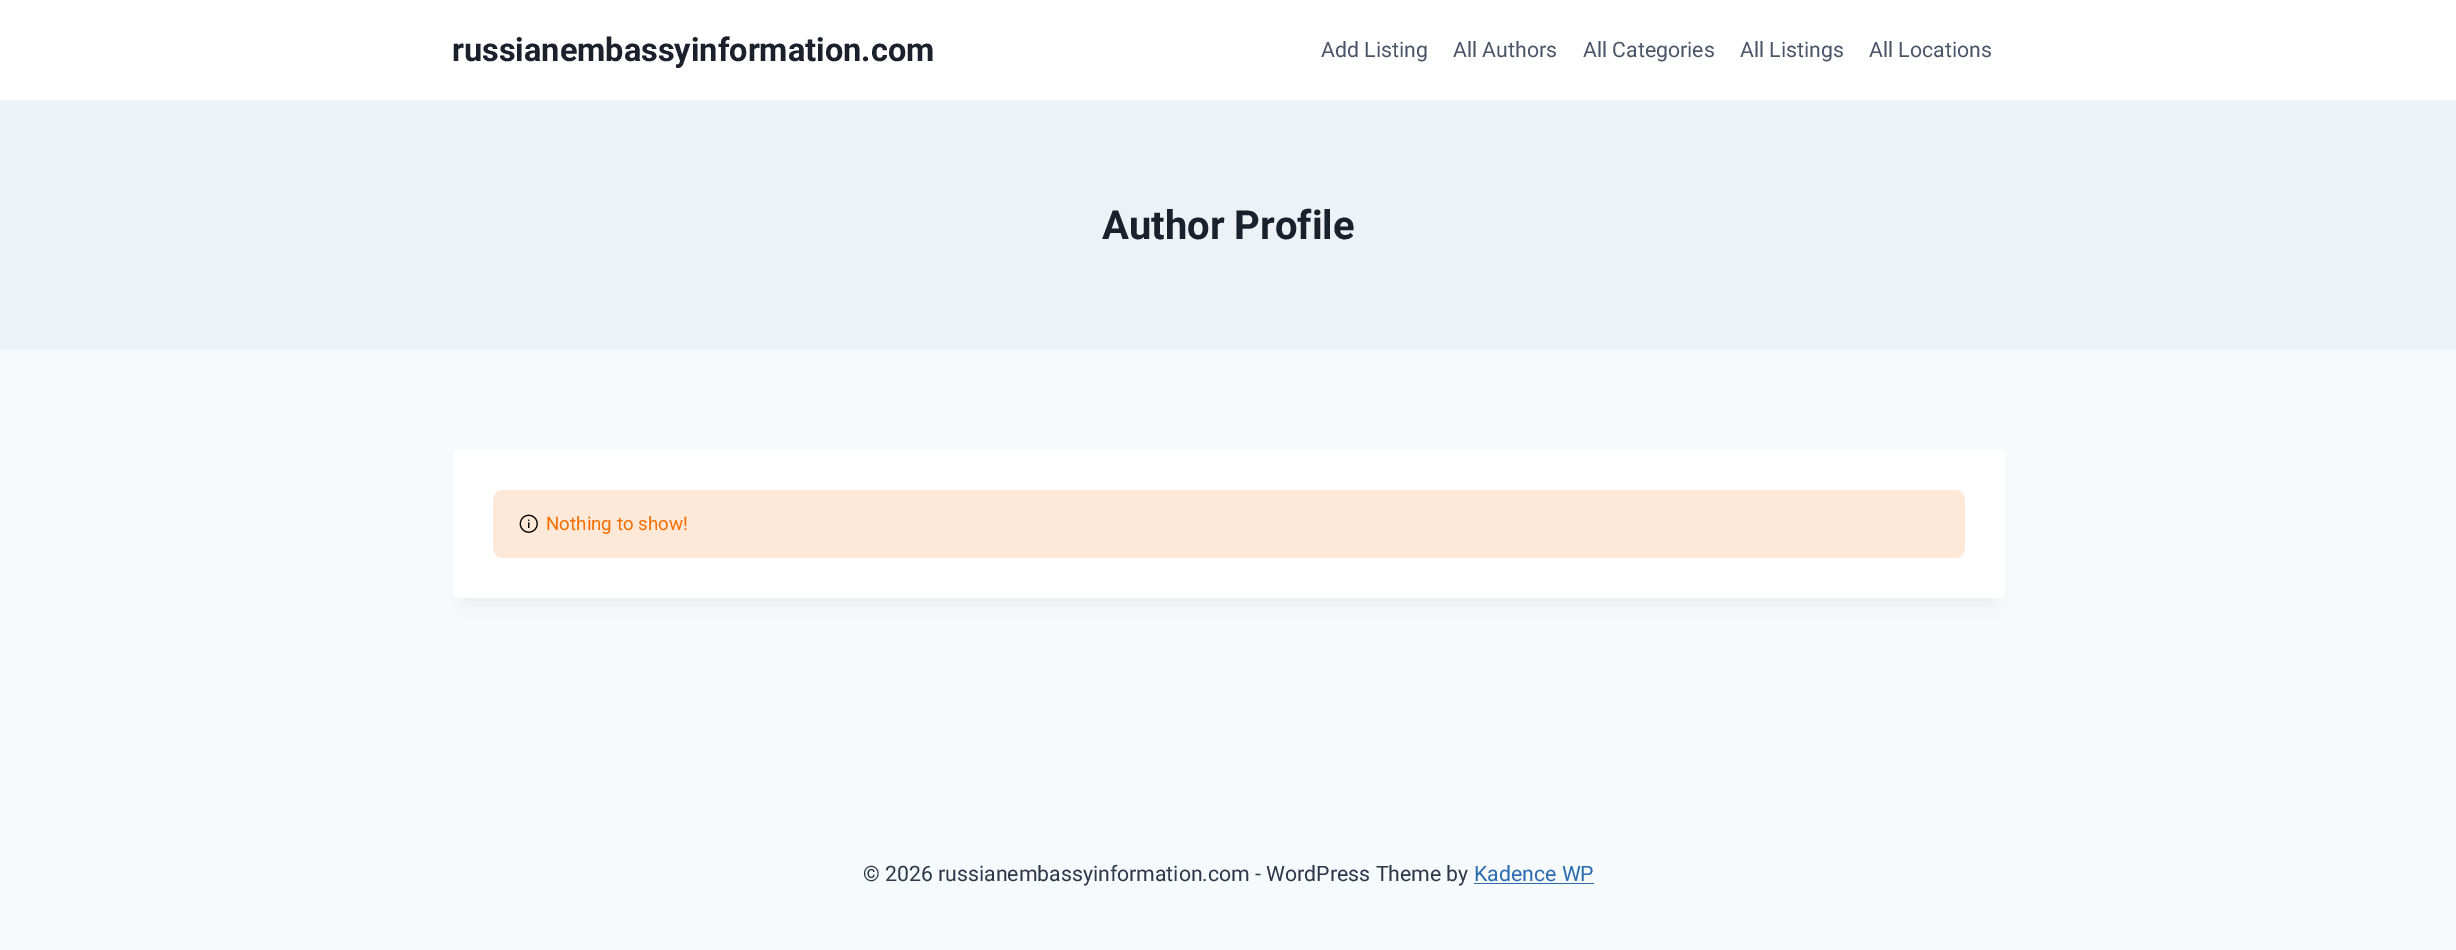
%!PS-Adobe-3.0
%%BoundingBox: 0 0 2456 950
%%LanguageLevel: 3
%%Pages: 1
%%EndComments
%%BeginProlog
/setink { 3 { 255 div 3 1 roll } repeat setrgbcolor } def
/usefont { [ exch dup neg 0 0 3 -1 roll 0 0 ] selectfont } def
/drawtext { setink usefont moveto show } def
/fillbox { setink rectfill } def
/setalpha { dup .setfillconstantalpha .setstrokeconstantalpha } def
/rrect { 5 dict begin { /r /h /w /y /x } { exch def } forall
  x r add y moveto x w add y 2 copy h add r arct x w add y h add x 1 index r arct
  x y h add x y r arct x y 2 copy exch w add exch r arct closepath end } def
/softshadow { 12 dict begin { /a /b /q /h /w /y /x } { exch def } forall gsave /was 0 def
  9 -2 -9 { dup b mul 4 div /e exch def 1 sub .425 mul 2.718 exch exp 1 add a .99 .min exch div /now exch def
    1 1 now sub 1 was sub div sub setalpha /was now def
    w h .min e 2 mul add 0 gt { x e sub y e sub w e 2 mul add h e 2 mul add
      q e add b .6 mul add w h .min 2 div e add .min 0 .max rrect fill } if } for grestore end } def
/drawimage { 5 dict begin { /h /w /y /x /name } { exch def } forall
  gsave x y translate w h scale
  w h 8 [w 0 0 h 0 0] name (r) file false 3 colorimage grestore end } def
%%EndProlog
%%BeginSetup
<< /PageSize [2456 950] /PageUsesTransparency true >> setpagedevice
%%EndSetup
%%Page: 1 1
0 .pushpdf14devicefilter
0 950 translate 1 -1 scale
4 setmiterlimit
0 0 2456 950 247 250 252 fillbox
0 0 2456 100 255 255 255 fillbox
(russianembassyinformation.com) 452 61 /Roboto-Bold 32.5 26 32 44 drawtext
(Add Listing) 1321 57 /Roboto-Regular 21.25 74 85 104 drawtext
(All Authors) 1453 57 /Roboto-Regular 21.25 74 85 104 drawtext
(All Categories) 1583 57 /Roboto-Regular 21.25 74 85 104 drawtext
(All Listings) 1740 57 /Roboto-Regular 21.25 74 85 104 drawtext
(All Locations) 1869 57 /Roboto-Regular 21.25 74 85 104 drawtext
0 100 2456 250 237 242 247 fillbox
(Author Profile) 1102 239 /Roboto-Bold 40 26 32 44 drawtext
0 0 0 setink
465 481 1528 123 0 9.5 0.05 softshadow
255 255 255 setink
453 450 1552 148 5 rrect fill
254 233 217 setink
493 490 1472 68 10 rrect fill
(assets/img1.rgb) 519 514 19 19 drawimage
(Nothing to show!) 546 530 /Roboto-Regular 18.75 245 110 0 drawtext
(© 2026 russianembassyinformation.com - WordPress Theme by) 863 881 /Roboto-Regular 21.25 45 55 72 drawtext
(Kadence WP) 1474 881 /Roboto-Regular 21.25 43 108 176 drawtext
1474 883 120 1 43 108 176 fillbox
.poppdf14devicefilter showpage
%%EOF
